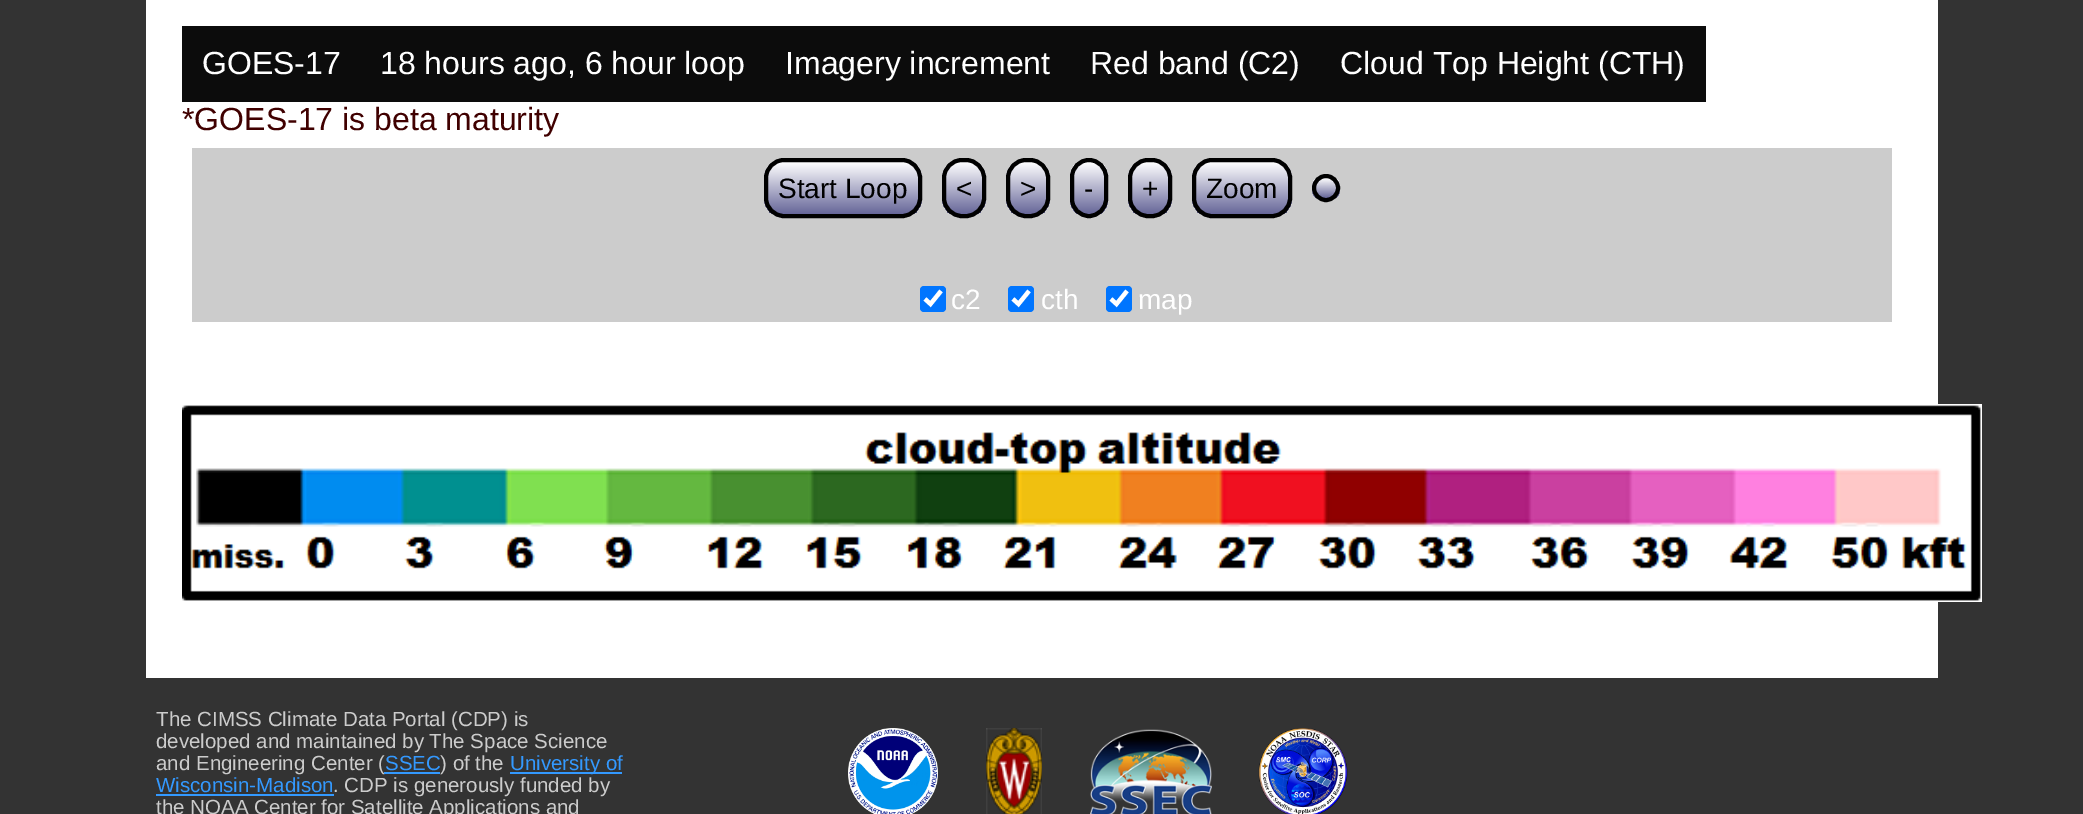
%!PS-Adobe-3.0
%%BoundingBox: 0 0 2083 814
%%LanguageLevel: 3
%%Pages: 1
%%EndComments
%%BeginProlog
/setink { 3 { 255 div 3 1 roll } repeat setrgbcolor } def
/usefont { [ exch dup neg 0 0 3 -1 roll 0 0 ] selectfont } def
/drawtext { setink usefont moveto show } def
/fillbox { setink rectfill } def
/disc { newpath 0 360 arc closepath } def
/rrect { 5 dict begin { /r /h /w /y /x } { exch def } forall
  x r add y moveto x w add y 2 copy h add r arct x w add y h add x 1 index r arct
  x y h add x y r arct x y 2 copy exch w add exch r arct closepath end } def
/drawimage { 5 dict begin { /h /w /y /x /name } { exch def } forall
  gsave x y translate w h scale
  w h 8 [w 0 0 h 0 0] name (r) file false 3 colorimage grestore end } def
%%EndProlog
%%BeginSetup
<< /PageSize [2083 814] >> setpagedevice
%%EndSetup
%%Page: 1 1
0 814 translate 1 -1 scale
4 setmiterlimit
0 0 2083 814 51 51 51 fillbox
146 0 1792 678 255 255 255 fillbox
182 26 1524 76 12 12 12 fillbox
(GOES-17) 202 74 /LiberationSans-Regular 32 255 255 255 drawtext
(18 hours ago, 6 hour loop) 380 74 /LiberationSans-Regular 32 255 255 255 drawtext
(Imagery increment) 785 74 /LiberationSans-Regular 32 255 255 255 drawtext
(Red band \(C2\)) 1090 74 /LiberationSans-Regular 32 255 255 255 drawtext
(Cloud Top Height \(CTH\)) 1340 74 /LiberationSans-Regular 32 255 255 255 drawtext
(*GOES-17 is beta maturity) 182 130 /LiberationSans-Regular 32 64 0 0 drawtext
192 148 1700 80 204 204 204 fillbox
gsave
764 158 158 60 20 rrect clip newpath
gsave 764 162 moveto 922 162 lineto 922 214 lineto 764 214 lineto closepath clip newpath
<< /ShadingType 2 /ColorSpace /DeviceRGB /Coords [843 162 843 214] /Extend [true true] /Function << /FunctionType 2 /Domain [0 1] /C0 [1 1 1] /C1 [0.4 0.4 0.6] /N 1 >> >> shfill grestore
grestore
0 0 0 setink
4 setlinewidth
766 160 154 56 18 rrect stroke
(Start Loop) 778 198 /LiberationSans-Regular 28 0 0 0 drawtext
gsave
942 158 44 60 20 rrect clip newpath
gsave 942 162 moveto 986 162 lineto 986 214 lineto 942 214 lineto closepath clip newpath
<< /ShadingType 2 /ColorSpace /DeviceRGB /Coords [964 162 964 214] /Extend [true true] /Function << /FunctionType 2 /Domain [0 1] /C0 [1 1 1] /C1 [0.4 0.4 0.6] /N 1 >> >> shfill grestore
grestore
944 160 40 56 18 rrect stroke
(<) 956 198 /LiberationSans-Regular 28 0 0 0 drawtext
gsave
1006 158 44 60 20 rrect clip newpath
gsave 1006 162 moveto 1050 162 lineto 1050 214 lineto 1006 214 lineto closepath clip newpath
<< /ShadingType 2 /ColorSpace /DeviceRGB /Coords [1028 162 1028 214] /Extend [true true] /Function << /FunctionType 2 /Domain [0 1] /C0 [1 1 1] /C1 [0.4 0.4 0.6] /N 1 >> >> shfill grestore
grestore
1008 160 40 56 18 rrect stroke
(>) 1020 198 /LiberationSans-Regular 28 0 0 0 drawtext
gsave
1070 158 38 60 19 rrect clip newpath
gsave 1070 162 moveto 1108 162 lineto 1108 214 lineto 1070 214 lineto closepath clip newpath
<< /ShadingType 2 /ColorSpace /DeviceRGB /Coords [1089 162 1089 214] /Extend [true true] /Function << /FunctionType 2 /Domain [0 1] /C0 [1 1 1] /C1 [0.4 0.4 0.6] /N 1 >> >> shfill grestore
grestore
1072 160 34 56 17 rrect stroke
(-) 1084 198 /LiberationSans-Regular 28 0 0 0 drawtext
gsave
1128 158 44 60 20 rrect clip newpath
gsave 1128 162 moveto 1172 162 lineto 1172 214 lineto 1128 214 lineto closepath clip newpath
<< /ShadingType 2 /ColorSpace /DeviceRGB /Coords [1150 162 1150 214] /Extend [true true] /Function << /FunctionType 2 /Domain [0 1] /C0 [1 1 1] /C1 [0.4 0.4 0.6] /N 1 >> >> shfill grestore
grestore
1130 160 40 56 18 rrect stroke
(+) 1142 198 /LiberationSans-Regular 28 0 0 0 drawtext
gsave
1192 158 100 60 20 rrect clip newpath
gsave 1192 162 moveto 1292 162 lineto 1292 214 lineto 1192 214 lineto closepath clip newpath
<< /ShadingType 2 /ColorSpace /DeviceRGB /Coords [1242 162 1242 214] /Extend [true true] /Function << /FunctionType 2 /Domain [0 1] /C0 [1 1 1] /C1 [0.4 0.4 0.6] /N 1 >> >> shfill grestore
grestore
1194 160 96 56 18 rrect stroke
(Zoom) 1206 198 /LiberationSans-Regular 28 0 0 0 drawtext
gsave
1312 174 28 28 14 rrect clip newpath
gsave 1312 178 moveto 1340 178 lineto 1340 198 lineto 1312 198 lineto closepath clip newpath
<< /ShadingType 2 /ColorSpace /DeviceRGB /Coords [1326 178 1326 198] /Extend [true true] /Function << /FunctionType 2 /Domain [0 1] /C0 [1 1 1] /C1 [0.4 0.4 0.6] /N 1 >> >> shfill grestore
grestore
1326 188 12 disc stroke
192 228 1700 94 204 204 204 fillbox
0 117 255 setink
920 286 26 26 4 rrect fill
255 255 255 setink
4.2 setlinewidth
925 299 moveto 930.5 304 lineto 941 291 lineto stroke
(c2) 951 309 /LiberationSans-Regular 28 255 255 255 drawtext
0 117 255 setink
1008 286 26 26 4 rrect fill
255 255 255 setink
1013 299 moveto 1018.5 304 lineto 1029 291 lineto stroke
(cth) 1041 309 /LiberationSans-Regular 28 255 255 255 drawtext
0 117 255 setink
1106 286 26 26 4 rrect fill
255 255 255 setink
1111 299 moveto 1116.5 304 lineto 1127 291 lineto stroke
(map) 1138 309 /LiberationSans-Regular 28 255 255 255 drawtext
(assets/img1.rgb) 182 404 1800 198 drawimage
(The CIMSS Climate Data Portal \(CDP\) is) 156 726 /LiberationSans-Regular 20.5 204 204 204 drawtext
(developed and maintained by The Space Science) 156 748 /LiberationSans-Regular 20.5 204 204 204 drawtext
(and Engineering Center \() 156 770 /LiberationSans-Regular 20.5 204 204 204 drawtext
(SSEC) 385 770 /LiberationSans-Regular 20.5 51 153 255 drawtext
384 772 56 2 51 153 255 fillbox
(\) of the) 440 770 /LiberationSans-Regular 20.5 204 204 204 drawtext
510 772 112 2 51 153 255 fillbox
(University of) 510 770 /LiberationSans-Regular 20.5 51 153 255 drawtext
(Wisconsin-Madison) 156 792 /LiberationSans-Regular 20.5 51 153 255 drawtext
156 794 178 2 51 153 255 fillbox
(. CDP is generously funded by) 333 792 /LiberationSans-Regular 20.5 204 204 204 drawtext
(the NOAA Center for Satellite Applications and) 156 814 /LiberationSans-Regular 20.5 204 204 204 drawtext
(assets/img2.rgb) 848 728 90 86 drawimage
(assets/img3.rgb) 986 728 56 86 drawimage
(assets/img4.rgb) 1090 729 122 85 drawimage
(assets/img5.rgb) 1258 728 90 86 drawimage
showpage
%%EOF
